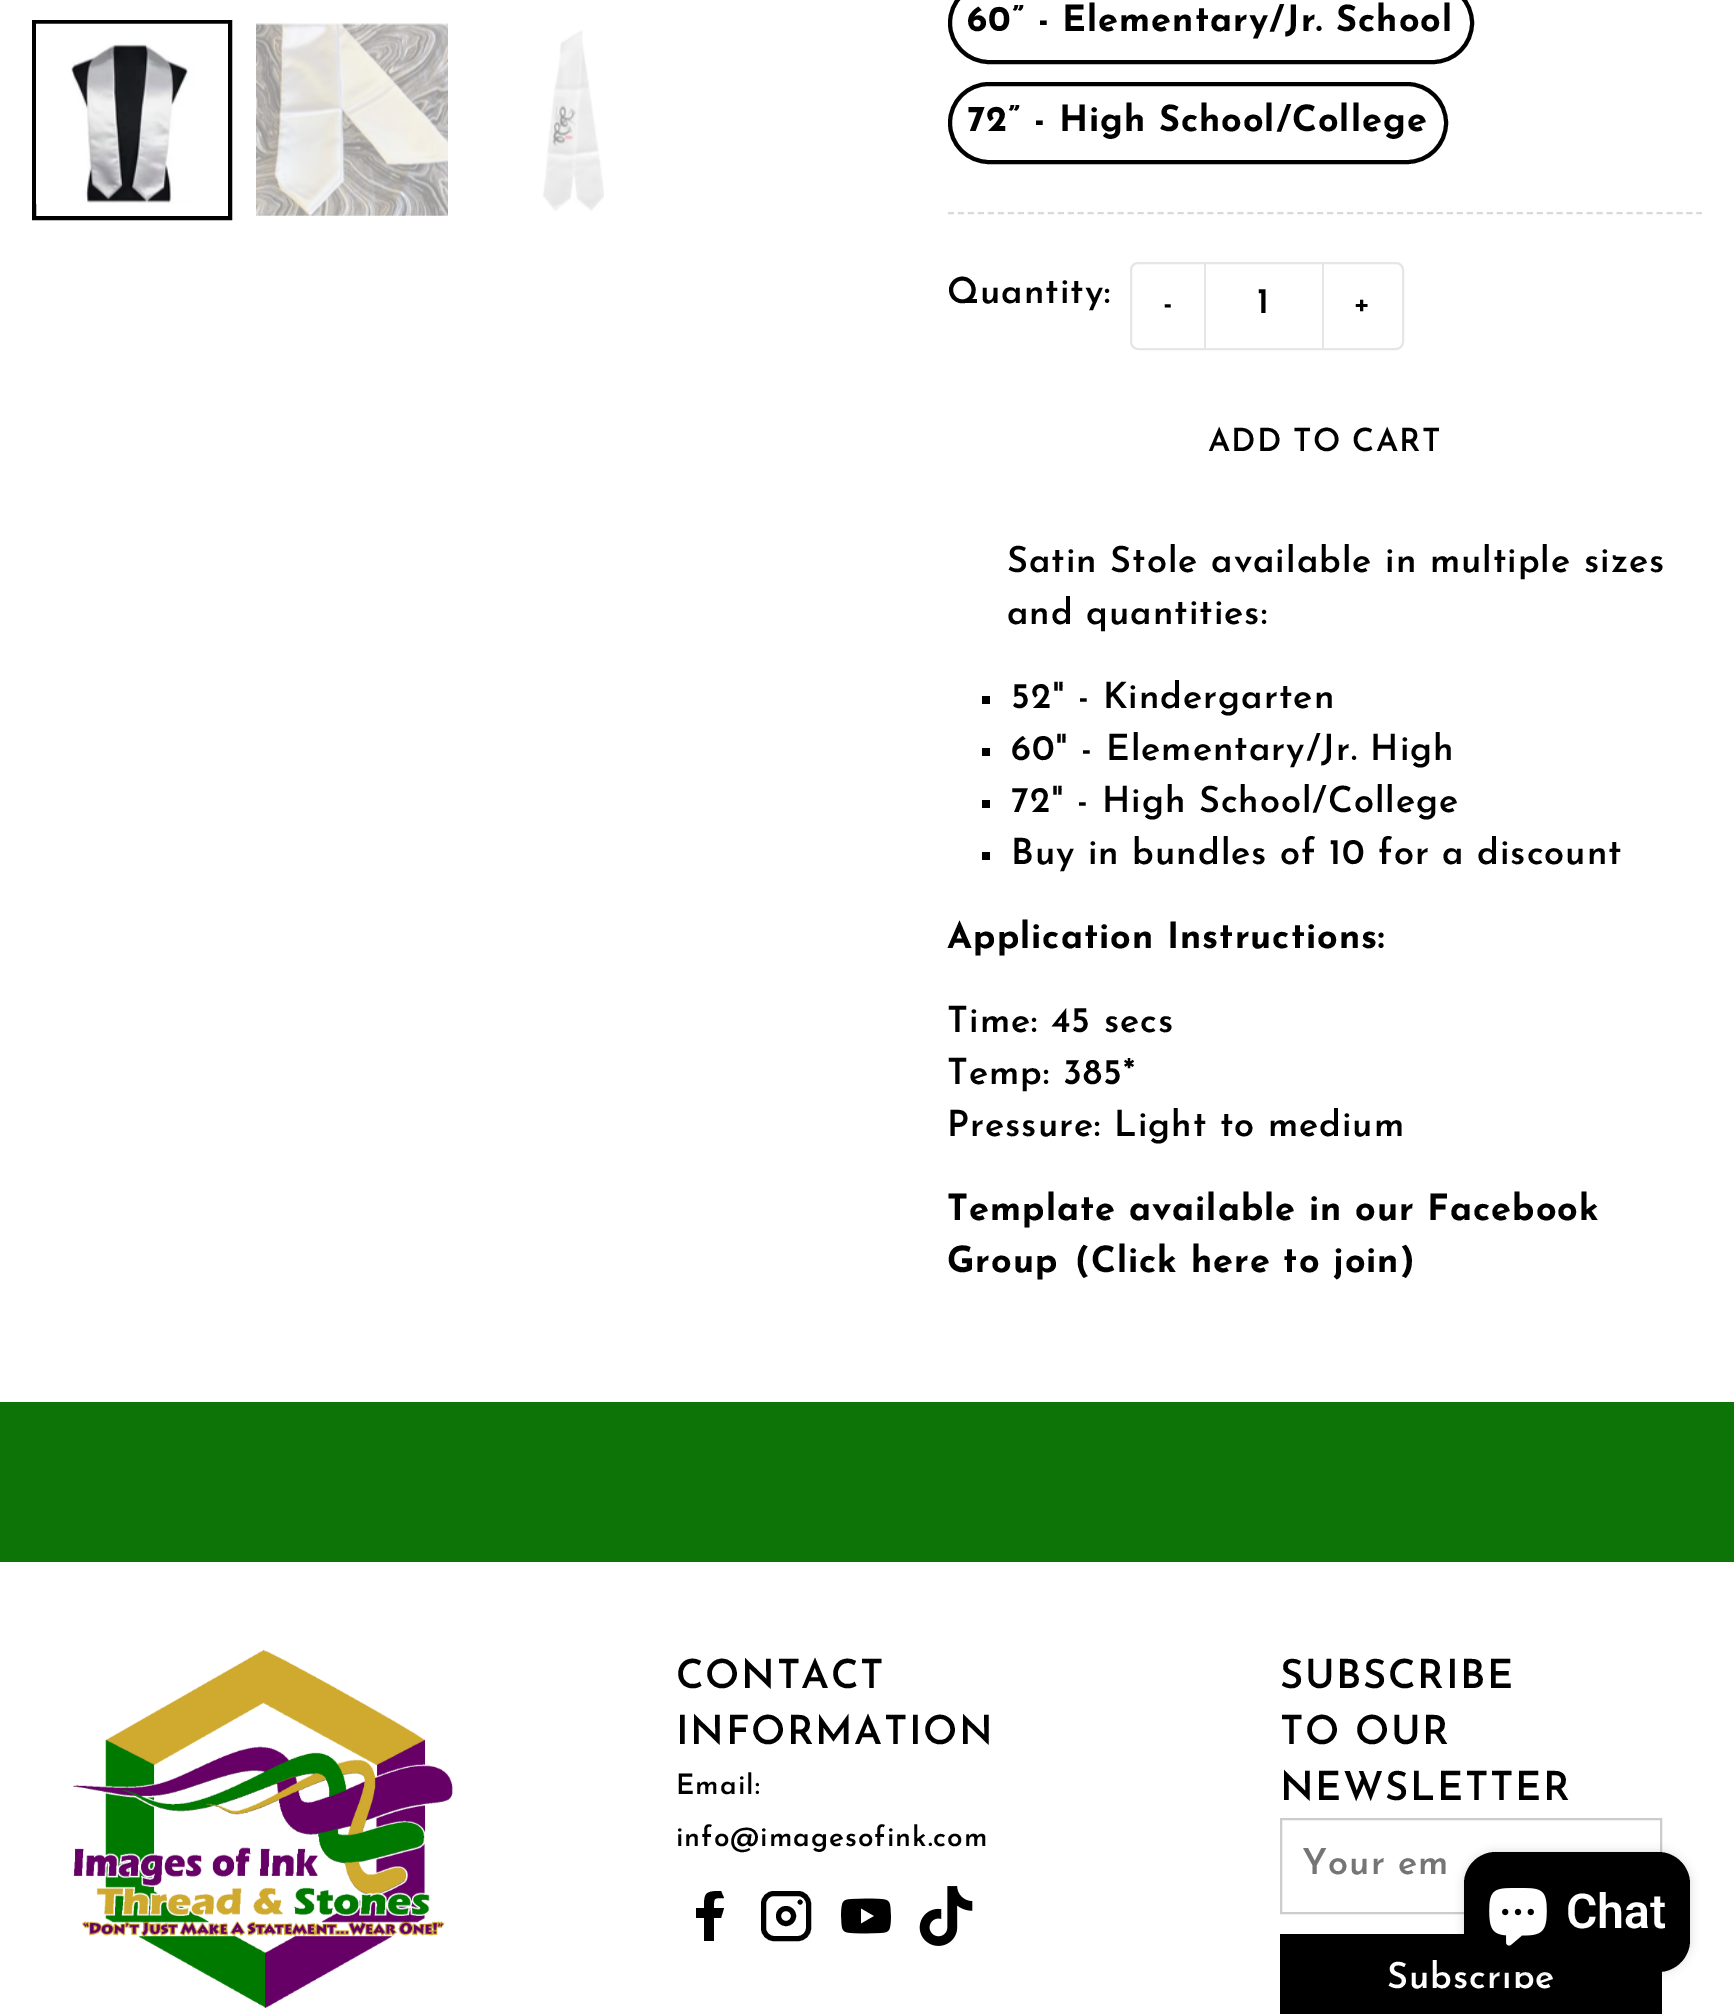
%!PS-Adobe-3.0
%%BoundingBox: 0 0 1734 2014
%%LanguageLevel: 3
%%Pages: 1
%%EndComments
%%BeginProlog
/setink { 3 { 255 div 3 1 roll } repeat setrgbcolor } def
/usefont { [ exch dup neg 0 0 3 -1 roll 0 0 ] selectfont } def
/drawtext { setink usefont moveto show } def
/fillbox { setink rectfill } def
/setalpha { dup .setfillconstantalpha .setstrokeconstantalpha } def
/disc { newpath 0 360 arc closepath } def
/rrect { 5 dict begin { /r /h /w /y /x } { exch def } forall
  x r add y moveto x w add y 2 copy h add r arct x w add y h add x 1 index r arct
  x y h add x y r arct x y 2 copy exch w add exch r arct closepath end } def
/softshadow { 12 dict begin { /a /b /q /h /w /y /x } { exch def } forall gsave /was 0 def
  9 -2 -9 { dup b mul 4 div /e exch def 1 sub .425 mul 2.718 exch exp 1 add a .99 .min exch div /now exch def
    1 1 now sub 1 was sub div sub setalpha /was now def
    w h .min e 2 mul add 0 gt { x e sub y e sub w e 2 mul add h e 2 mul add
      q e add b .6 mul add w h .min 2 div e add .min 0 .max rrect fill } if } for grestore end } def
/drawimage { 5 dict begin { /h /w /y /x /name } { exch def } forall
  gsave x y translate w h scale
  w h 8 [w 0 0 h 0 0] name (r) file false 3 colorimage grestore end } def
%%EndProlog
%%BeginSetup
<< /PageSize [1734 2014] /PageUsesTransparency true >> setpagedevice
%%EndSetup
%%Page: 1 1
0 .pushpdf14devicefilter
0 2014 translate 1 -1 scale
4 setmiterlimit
0 0 1734 2014 255 255 255 fillbox
0 0 0 setink
4 setlinewidth
34 22 196 196 rectstroke
(assets/img1.rgb) 36 23 192 181 drawimage
(assets/img2.rgb) 256 23 192 193 drawimage
(assets/img3.rgb) 542 30 62 181 drawimage
217 217 217 setink
2 setlinewidth
[6 3.98] 0 setdash
948 213 moveto 1702 213 lineto stroke
0 0 0 setink
4 setlinewidth
[] 0 setdash
950 -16 522 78 39 rrect stroke
/JosefinSans-Bold 36 usefont
967 31 moveto 1 0 (60” - Elementary/Jr. School) ashow
950 84 496 78 39 rrect stroke
967 131 moveto 1 0 (72” - High School/College) ashow
/JosefinSans-SemiBold 36 usefont
947 303 moveto 1 0 (Quantity:) ashow
230 230 230 setink
2 setlinewidth
1131 263 272 86 7 rrect stroke
/JosefinSans-SemiBold 32 usefont
0 0 0 setink
1163 313 moveto 1 0 (-) ashow
1322 264 2 84 230 230 230 fillbox
1204 264 2 84 230 230 230 fillbox
/JosefinSans-SemiBold 36 usefont
0 0 0 setink
1257 313 moveto 1 0 (1) ashow
/JosefinSans-SemiBold 32 usefont
1353 313 moveto 1 0 (+) ashow
1208 451 moveto 1 0 (ADD TO CART) ashow
/JosefinSans-SemiBold 36 usefont
1007 572 moveto 1 0 (Satin Stole available in multiple sizes) ashow
1007 624 moveto 1 0 (and quantities:) ashow
982 696 8 8 0 0 0 fillbox
1011 708 moveto 1 0 (52" - Kindergarten) ashow
982 748 8 8 0 0 0 fillbox
1011 760 moveto 1 0 (60" - Elementary/Jr. High) ashow
982 800 8 8 0 0 0 fillbox
1011 812 moveto 1 0 (72" - High School/College) ashow
982 852 8 8 0 0 0 fillbox
1011 864 moveto 1 0 (Buy in bundles of 10 for a discount) ashow
/JosefinSans-Bold 36 usefont
947 948 moveto 1 0 (Application Instructions:) ashow
/JosefinSans-SemiBold 36 usefont
947 1032 moveto 1 0 (Time: 45 secs) ashow
947 1084 moveto 1 0 (Temp: 385*) ashow
947 1136 moveto 1 0 (Pressure: Light to medium) ashow
/JosefinSans-Bold 36 usefont
947 1220 moveto 1 0 (Template available in our Facebook) ashow
947 1272 moveto 1 0 (Group) ashow
1075 1272 moveto 1 0 (\(Click here to join\)) ashow
0 1402 1734 160 13 117 7 fillbox
(assets/img4.rgb) 73 1649 380 359 drawimage
/JosefinSans-SemiBold 40 usefont
0 0 0 setink
676 1688 moveto 1.6 0 (CONTACT) ashow
676 1744 moveto 1.6 0 (INFORMATION) ashow
/JosefinSans-SemiBold 28 usefont
676 1794 moveto 1 0 (Email:) ashow
676 1846 moveto 1 0 (info@imagesofink.com) ashow
721 1891 moveto 705 1891 704 1893 704 1908 curveto 696 1908 lineto 696 1918 lineto 704 1918 lineto 704 1941 lineto 714 1941 lineto 714 1918 lineto 721 1918 lineto 724 1908 lineto 714 1908 lineto 714 1898 713 1898 724 1898 curveto closepath fill
5 setlinewidth
763.5 1893.5 45 45 10.5 rrect stroke
786 1916 7.5 disc stroke
1 setlinecap
1 setlinejoin
800 1902 moveto 800 1902 lineto stroke
(assets/img5.rgb) 841 1898 50 36 drawimage
(assets/img6.rgb) 919 1886 54 60 drawimage
/JosefinSans-SemiBold 40 usefont
1280 1688 moveto 1.6 0 (SUBSCRIBE) ashow
1280 1744 moveto 1.6 0 (TO OUR) ashow
1280 1800 moveto 1.6 0 (NEWSLETTER) ashow
204 204 204 setink
2 setlinewidth
0 setlinecap
0 setlinejoin
1281 1819 380 94 rectstroke
gsave
1302 1848 338 36 rectclip
/JosefinSans-SemiBold 36 usefont
117 117 117 setink
1302 1874 moveto 1 0 (Your em) ashow
grestore
1280 1934 382 80 0 0 0 fillbox
/JosefinSans-SemiBold 36 usefont
255 255 255 setink
1387 1988 moveto 1 0 (Subscribe) ashow
0 0 0 setink
1464 1852 226 120 32 5 0.15 softshadow
1464 1852 226 120 32 rrect fill
(assets/img7.rgb) 1489 1888 58 58 drawimage
(Chat) 1566 1928 /Roboto-SemiBold 48 255 255 255 drawtext
.poppdf14devicefilter showpage
%%EOF
